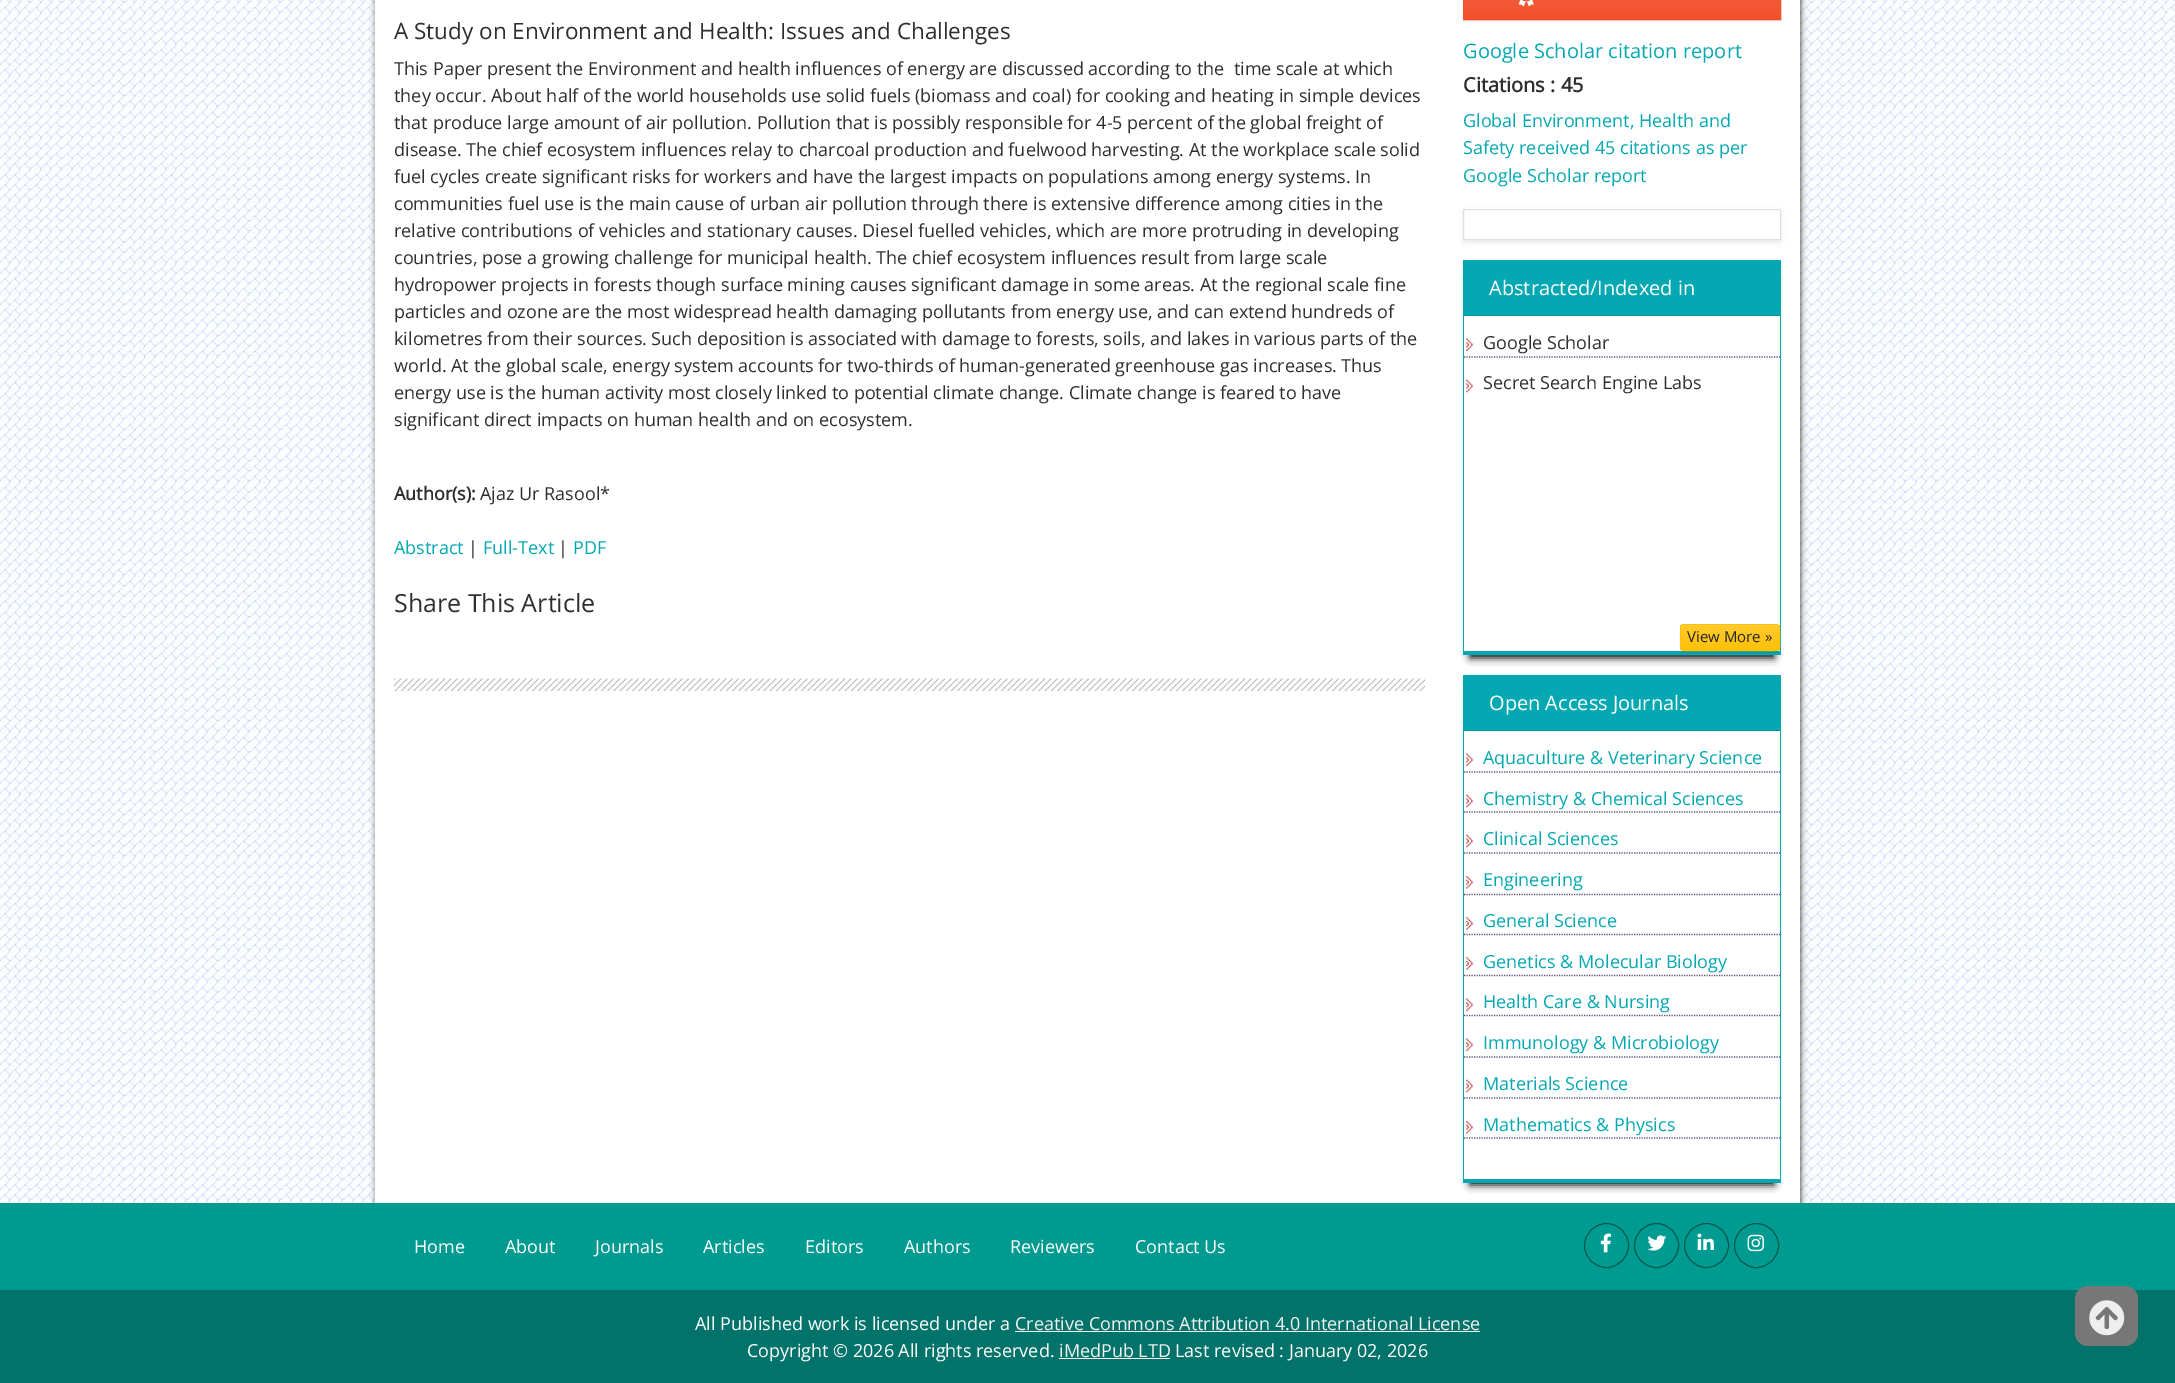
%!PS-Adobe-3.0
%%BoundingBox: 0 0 2175 1383
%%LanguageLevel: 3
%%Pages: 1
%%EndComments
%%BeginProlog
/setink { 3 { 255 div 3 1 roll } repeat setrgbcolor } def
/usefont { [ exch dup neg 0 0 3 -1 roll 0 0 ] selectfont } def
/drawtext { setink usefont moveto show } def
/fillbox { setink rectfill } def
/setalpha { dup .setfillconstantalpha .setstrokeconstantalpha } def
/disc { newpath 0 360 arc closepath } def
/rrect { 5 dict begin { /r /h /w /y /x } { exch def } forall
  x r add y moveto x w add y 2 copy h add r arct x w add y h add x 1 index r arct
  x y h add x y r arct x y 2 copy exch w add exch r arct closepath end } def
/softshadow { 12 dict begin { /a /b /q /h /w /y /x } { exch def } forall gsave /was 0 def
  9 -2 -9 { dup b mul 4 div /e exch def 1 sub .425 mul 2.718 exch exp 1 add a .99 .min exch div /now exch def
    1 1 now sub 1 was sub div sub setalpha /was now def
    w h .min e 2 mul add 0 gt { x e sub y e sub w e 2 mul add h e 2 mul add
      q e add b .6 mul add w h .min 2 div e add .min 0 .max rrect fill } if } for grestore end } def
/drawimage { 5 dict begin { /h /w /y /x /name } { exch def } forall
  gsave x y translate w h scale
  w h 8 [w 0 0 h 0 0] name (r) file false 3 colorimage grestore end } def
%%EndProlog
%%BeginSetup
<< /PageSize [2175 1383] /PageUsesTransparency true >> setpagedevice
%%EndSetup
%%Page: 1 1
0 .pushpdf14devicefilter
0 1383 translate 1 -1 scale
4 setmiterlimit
0 0 2175 1383 255 255 255 fillbox
(assets/img1.rgb) 0 0 2175 1203 drawimage
74 74 74 setink
376 -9 1425 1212 0 3 1 softshadow
375 0 1425 1203 255 255 255 fillbox
(assets/img2.rgb) 393 678 1032 13 drawimage
(A Study on Environment and Health: Issues and Challenges) 394 39 /OpenSans-Regular 22.5 46 46 46 drawtext
(This Paper present the Environment and health influences of energy are discussed according to the  time scale at which) 394 75 /OpenSans-Regular 18 46 46 46 drawtext
(they occur. About half of the world households use solid fuels \(biomass and coal\) for cooking and heating in simple devices) 394 102 /OpenSans-Regular 18 46 46 46 drawtext
(that produce large amount of air pollution. Pollution that is possibly responsible for 4-5 percent of the global freight of) 394 129 /OpenSans-Regular 18 46 46 46 drawtext
(disease. The chief ecosystem influences relay to charcoal production and fuelwood harvesting. At the workplace scale solid) 394 156 /OpenSans-Regular 18 46 46 46 drawtext
(fuel cycles create significant risks for workers and have the largest impacts on populations among energy systems. In) 394 183 /OpenSans-Regular 18 46 46 46 drawtext
(communities fuel use is the main cause of urban air pollution through there is extensive difference among cities in the) 394 210 /OpenSans-Regular 18 46 46 46 drawtext
(relative contributions of vehicles and stationary causes. Diesel fuelled vehicles, which are more protruding in developing) 394 237 /OpenSans-Regular 18 46 46 46 drawtext
(countries, pose a growing challenge for municipal health. The chief ecosystem influences result from large scale) 394 264 /OpenSans-Regular 18 46 46 46 drawtext
(hydropower projects in forests though surface mining causes significant damage in some areas. At the regional scale fine) 394 291 /OpenSans-Regular 18 46 46 46 drawtext
(particles and ozone are the most widespread health damaging pollutants from energy use, and can extend hundreds of) 394 318 /OpenSans-Regular 18 46 46 46 drawtext
(kilometres from their sources. Such deposition is associated with damage to forests, soils, and lakes in various parts of the) 394 345 /OpenSans-Regular 18 46 46 46 drawtext
(world. At the global scale, energy system accounts for two-thirds of human-generated greenhouse gas increases. Thus) 394 372 /OpenSans-Regular 18 46 46 46 drawtext
(energy use is the human activity most closely linked to potential climate change. Climate change is feared to have) 394 399 /OpenSans-Regular 18 46 46 46 drawtext
(significant direct impacts on human health and on ecosystem.) 394 426 /OpenSans-Regular 18 46 46 46 drawtext
(Author\(s\):) 394 500 /OpenSans-Bold 18 46 46 46 drawtext
(Ajaz Ur Rasool*) 480 500 /OpenSans-Regular 18 46 46 46 drawtext
(Abstract) 394 554 /OpenSans-Regular 18 4 168 178 drawtext
(|) 468 554 /OpenSans-Regular 18 46 46 46 drawtext
(Full-Text) 483 554 /OpenSans-Regular 18 4 168 178 drawtext
(|) 558 554 /OpenSans-Regular 18 46 46 46 drawtext
(PDF) 573 554 /OpenSans-Regular 18 4 168 178 drawtext
(Share This Article) 394 612 /OpenSans-Regular 25 46 46 46 drawtext
0 0 0 setink
1463 -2 318 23 0 0.5 0.07 softshadow
gsave 1464 0 moveto 1780 0 lineto 1780 19 lineto 1464 19 lineto closepath clip newpath
<< /ShadingType 2 /ColorSpace /DeviceRGB /Coords [1622 -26 1622 19] /Extend [true true] /Function << /FunctionType 2 /Domain [0 1] /C0 [0.957 0.416 0.29] /C1 [0.949 0.314 0.165] /N 1 >> >> shfill grestore
242 80 42 setink
1463.5 -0.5 317 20 rectstroke
(assets/img3.rgb) 1518 0 16 7 drawimage
(Google Scholar citation report) 1463 58 /OpenSans-Regular 20 4 168 178 drawtext
(Citations : 45) 1463 92 /OpenSans-Bold 20 46 46 46 drawtext
(Global Environment, Health and) 1463 127 /OpenSans-Regular 18 4 168 178 drawtext
(Safety received 45 citations as per) 1463 154 /OpenSans-Regular 18 4 168 178 drawtext
(Google Scholar report) 1463 182 /OpenSans-Regular 18 4 168 178 drawtext
gsave
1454 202 moveto 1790 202 lineto 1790 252 lineto 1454 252 lineto closepath 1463 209 moveto 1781 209 lineto 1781 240 lineto 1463 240 lineto closepath eoclip newpath
0 0 0 setink
1463 211 318 32 0 2.5 0.07 softshadow
grestore
223 223 223 setink
1463.5 209.5 317 30 rectstroke
gsave
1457 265 moveto 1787 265 lineto 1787 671 lineto 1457 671 lineto closepath 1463 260 moveto 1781 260 lineto 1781 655 lineto 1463 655 lineto closepath eoclip newpath
0 0 0 setink
1470 278 304 380 0 4 1 softshadow
grestore
1463 260 318 1 4 168 178 fillbox
1780 260 1 395 4 168 178 fillbox
1463 651 318 4 4 168 178 fillbox
1463 260 1 395 4 168 178 fillbox
1464 261 316 54 4 168 178 fillbox
1464 315 316 1 4 147 156 fillbox
(Abstracted/Indexed in) 1489 295 /OpenSans-Regular 20 255 255 255 drawtext
(assets/img4.rgb) 1466 338 7 13 drawimage
94 79 112 setink
1.2 setlinewidth
[1.25 1.25] 0 setdash
1464 357 moveto 1780 357 lineto stroke
(Google Scholar) 1483 349 /OpenSans-Regular 18 46 46 46 drawtext
(assets/img5.rgb) 1466 379 7 14 drawimage
(Secret Search Engine Labs) 1483 389 /OpenSans-Regular 18 46 46 46 drawtext
0 0 0 setink
1680 625 100 28 4 0.5 0.07 softshadow
gsave
1680 624 100 27 4 rrect clip newpath
gsave 1680 625 moveto 1780 625 lineto 1780 650 lineto 1680 650 lineto closepath clip newpath
<< /ShadingType 2 /ColorSpace /DeviceRGB /Coords [1730 625 1730 650] /Extend [true true] /Function << /FunctionType 2 /Domain [0 1] /C0 [1 0.792 0.173] /C1 [1 0.757 0.027] /N 1 >> >> shfill grestore
grestore
255 210 75 setink
1684 626 moveto 1776 626 lineto 1778 626 1779 627 1779 629 curveto 1779 628 lineto 1779 626 1778 625 1776 625 curveto 1684 625 lineto 1682 625 1681 626 1681 628 curveto 1681 629 lineto 1681 627 1682 626 1684 626 curveto closepath fill
255 193 7 setink
1 setlinewidth
[] 0 setdash
1680.5 624.5 99 26 3.5 rrect stroke
(View More ») 1687 642 /OpenSans-Regular 15 33 37 41 drawtext
gsave
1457 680 moveto 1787 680 lineto 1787 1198 lineto 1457 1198 lineto closepath 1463 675 moveto 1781 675 lineto 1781 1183 lineto 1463 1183 lineto closepath eoclip newpath
0 0 0 setink
1470 693 304 492 0 4 1 softshadow
grestore
1463 675 318 1 4 168 178 fillbox
1780 675 1 508 4 168 178 fillbox
1463 1179 318 4 4 168 178 fillbox
1463 675 1 508 4 168 178 fillbox
1464 676 316 54 4 168 178 fillbox
1464 730 316 1 4 147 156 fillbox
(Open Access Journals) 1489 710 /OpenSans-Regular 20 255 255 255 drawtext
(assets/img4.rgb) 1466 753 7 13 drawimage
94 79 112 setink
1.2 setlinewidth
[1.25 1.25] 0 setdash
1464 772 moveto 1780 772 lineto stroke
(Aquaculture & Veterinary Science) 1483 764 /OpenSans-Regular 18 4 168 178 drawtext
(assets/img5.rgb) 1466 794 7 14 drawimage
94 79 112 setink
1464 812 moveto 1780 812 lineto stroke
(Chemistry & Chemical Sciences) 1483 805 /OpenSans-Regular 18 4 168 178 drawtext
(assets/img5.rgb) 1466 834 7 14 drawimage
94 79 112 setink
1464 853 moveto 1780 853 lineto stroke
(Clinical Sciences) 1483 845 /OpenSans-Regular 18 4 168 178 drawtext
(assets/img6.rgb) 1466 876 7 13 drawimage
94 79 112 setink
1464 894.5 moveto 1780 894.5 lineto stroke
(Engineering) 1483 886 /OpenSans-Regular 18 4 168 178 drawtext
(assets/img7.rgb) 1466 917 7 13 drawimage
94 79 112 setink
1464 934.5 moveto 1780 934.5 lineto stroke
(General Science) 1483 927 /OpenSans-Regular 18 4 168 178 drawtext
(assets/img7.rgb) 1466 957 7 13 drawimage
94 79 112 setink
1464 975.5 moveto 1780 975.5 lineto stroke
(Genetics & Molecular Biology) 1483 968 /OpenSans-Regular 18 4 168 178 drawtext
(assets/img4.rgb) 1466 998 7 13 drawimage
94 79 112 setink
1464 1015.5 moveto 1780 1015.5 lineto stroke
(Health Care & Nursing) 1483 1008 /OpenSans-Regular 18 4 168 178 drawtext
(assets/img4.rgb) 1466 1038 7 13 drawimage
94 79 112 setink
1464 1057 moveto 1780 1057 lineto stroke
(Immunology & Microbiology) 1483 1049 /OpenSans-Regular 18 4 168 178 drawtext
(assets/img5.rgb) 1466 1079 7 14 drawimage
94 79 112 setink
1464 1098 moveto 1780 1098 lineto stroke
(Materials Science) 1483 1090 /OpenSans-Regular 18 4 168 178 drawtext
(assets/img8.rgb) 1466 1121 7 13 drawimage
94 79 112 setink
1464 1138 moveto 1780 1138 lineto stroke
(Mathematics & Physics) 1483 1131 /OpenSans-Regular 18 4 168 178 drawtext
0 1203 2175 87 0 155 144 fillbox
(Home) 414 1253 /OpenSans-Regular 18 255 255 255 drawtext
(About) 505 1253 /OpenSans-Regular 18 255 255 255 drawtext
(Journals) 595 1253 /OpenSans-Regular 18 255 255 255 drawtext
(Articles) 703 1253 /OpenSans-Regular 18 255 255 255 drawtext
(Editors) 805 1253 /OpenSans-Regular 18 255 255 255 drawtext
(Authors) 904 1253 /OpenSans-Regular 18 255 255 255 drawtext
(Reviewers) 1010 1253 /OpenSans-Regular 18 255 255 255 drawtext
(Contact Us) 1135 1253 /OpenSans-Regular 18 255 255 255 drawtext
0 88 80 setink
1 setlinewidth
[] 0 setdash
1606.5 1245.5 22 disc stroke
(assets/img9.rgb) 1600 1233 11 20 drawimage
1656.5 1245.5 22 disc stroke
(assets/img10.rgb) 1647 1235 20 16 drawimage
1706.5 1245.5 22 disc stroke
(assets/img11.rgb) 1697 1233 17 17 drawimage
1756.5 1245.5 22 disc stroke
(assets/img12.rgb) 1747 1234 17 18 drawimage
0 1290 2175 93 2 115 107 fillbox
(All Published work is licensed under a) 695 1330 /OpenSans-Regular 18 255 255 255 drawtext
(Creative Commons Attribution 4.0 International License) 1015 1330 /OpenSans-Regular 18 242 242 241 drawtext
1015 1331 465 1 242 242 241 fillbox
(Copyright © 2026 All rights reserved.) 747 1357 /OpenSans-Regular 18 255 255 255 drawtext
(iMedPub LTD) 1059 1357 /OpenSans-Regular 18 242 242 241 drawtext
1059 1358 111 1 242 242 241 fillbox
(Last revised : January 02, 2026) 1175 1357 /OpenSans-Regular 18 255 255 255 drawtext
119 119 119 setink
2075 1286 63 60 13 rrect fill
(assets/img13.rgb) 2089 1300 36 36 drawimage
.poppdf14devicefilter showpage
%%EOF
